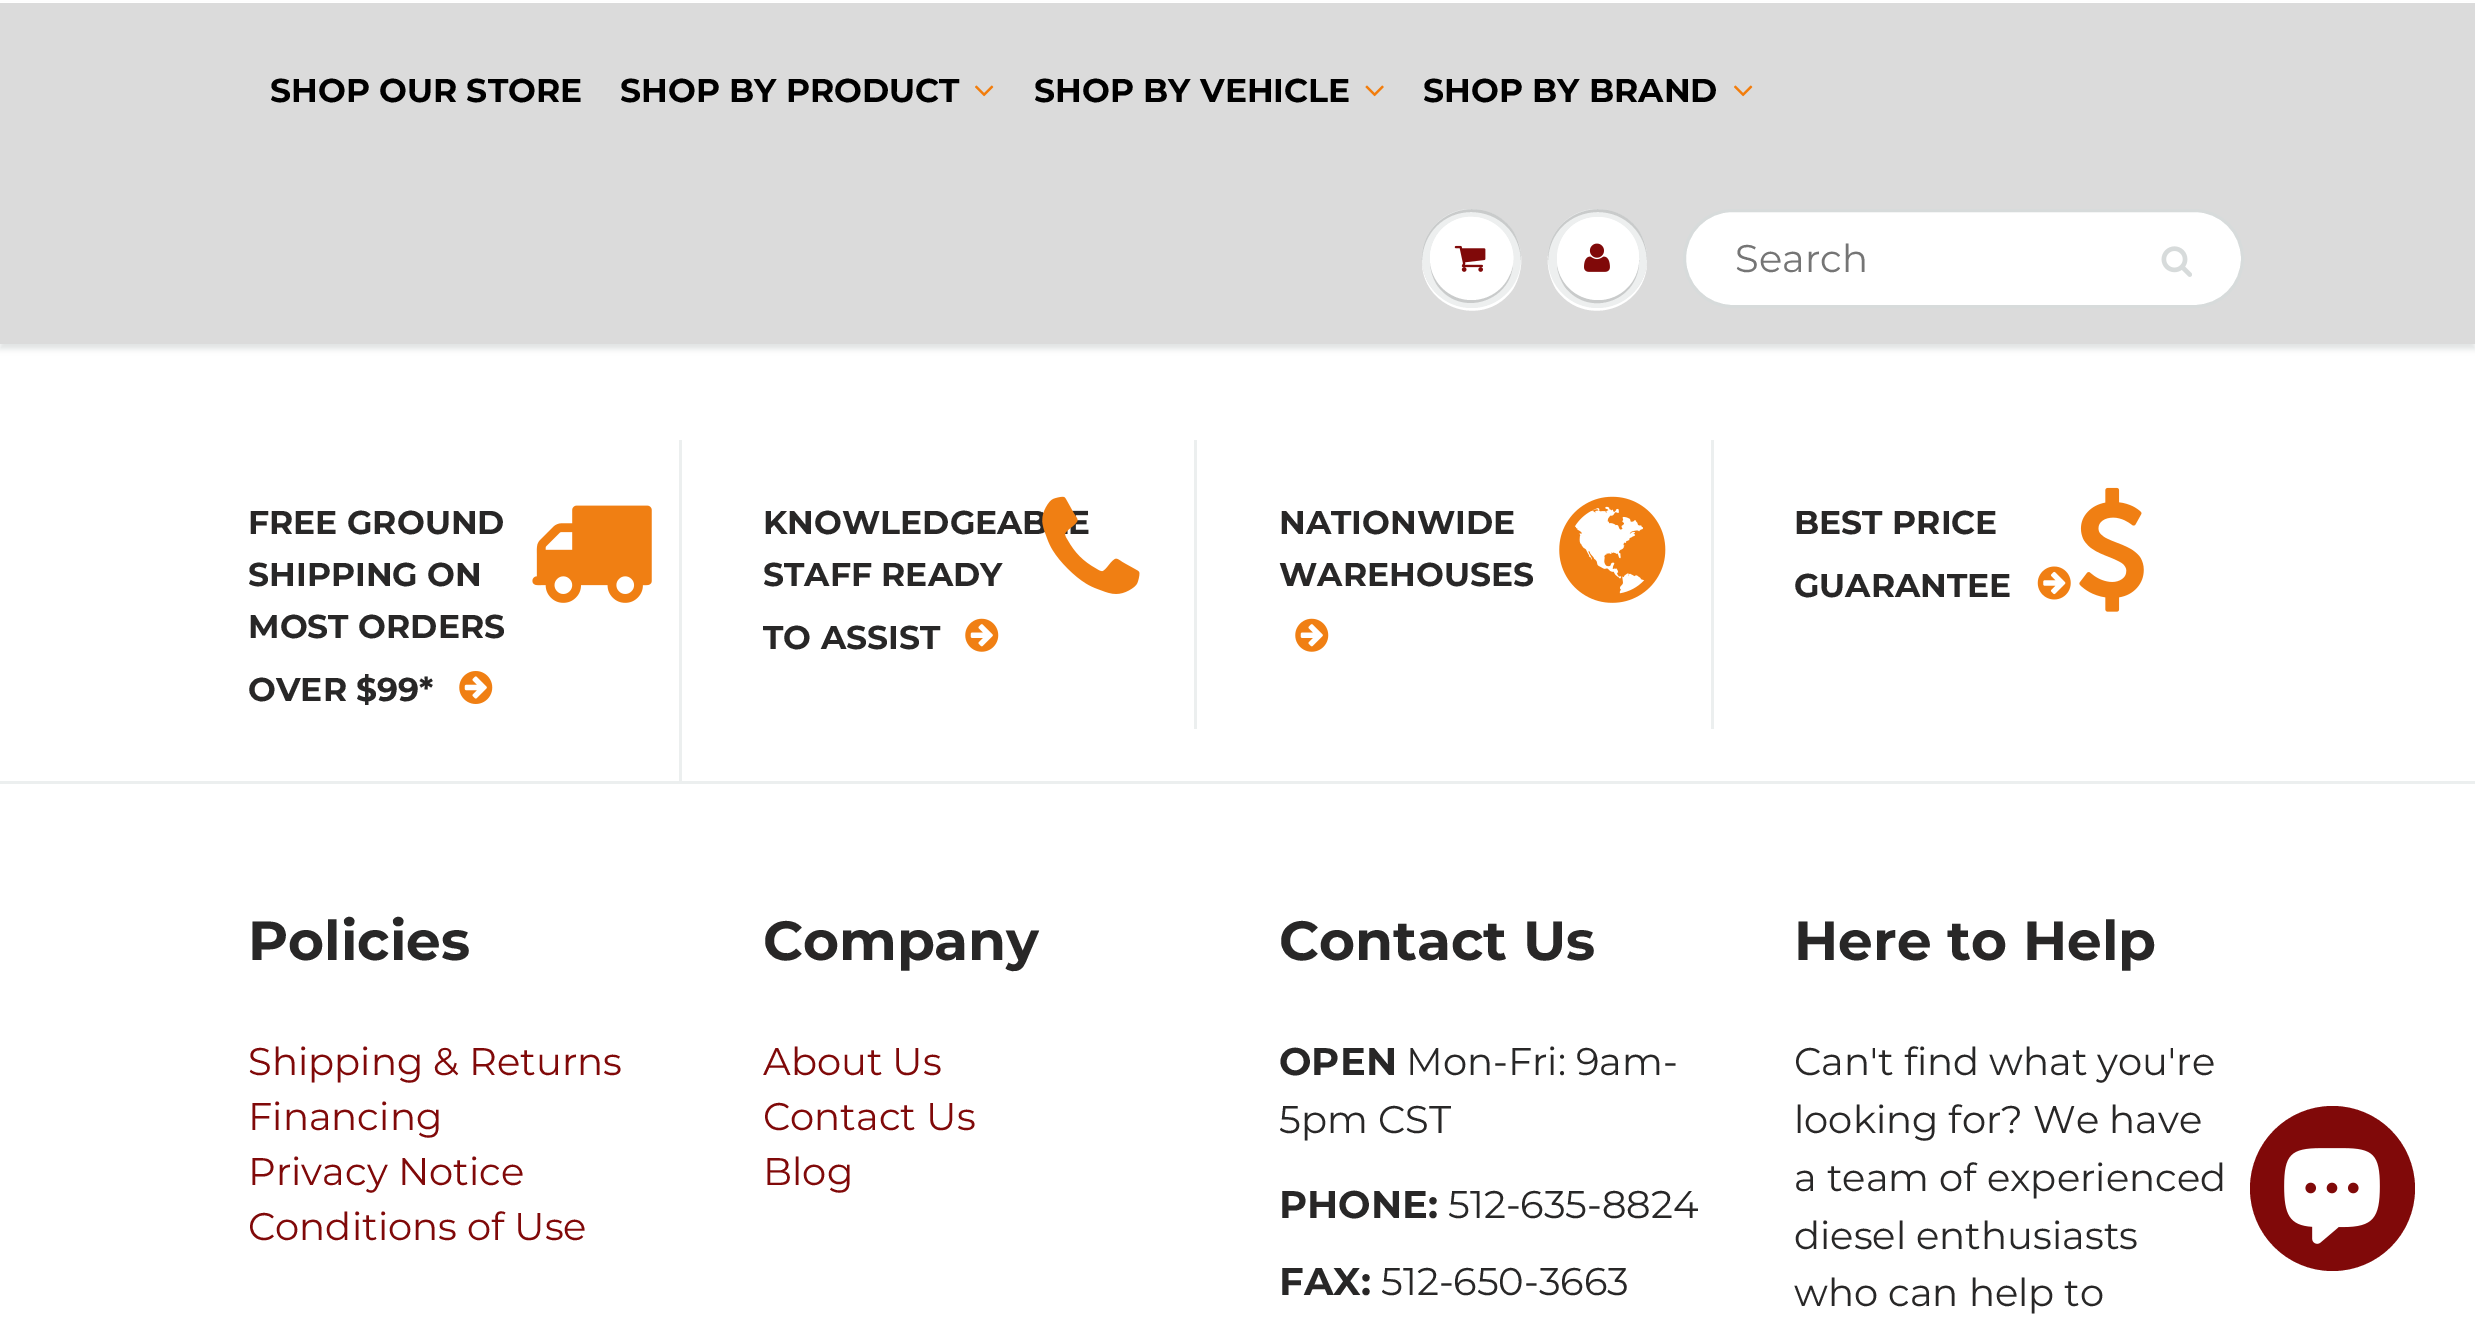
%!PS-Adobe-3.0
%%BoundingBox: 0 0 2475 1326
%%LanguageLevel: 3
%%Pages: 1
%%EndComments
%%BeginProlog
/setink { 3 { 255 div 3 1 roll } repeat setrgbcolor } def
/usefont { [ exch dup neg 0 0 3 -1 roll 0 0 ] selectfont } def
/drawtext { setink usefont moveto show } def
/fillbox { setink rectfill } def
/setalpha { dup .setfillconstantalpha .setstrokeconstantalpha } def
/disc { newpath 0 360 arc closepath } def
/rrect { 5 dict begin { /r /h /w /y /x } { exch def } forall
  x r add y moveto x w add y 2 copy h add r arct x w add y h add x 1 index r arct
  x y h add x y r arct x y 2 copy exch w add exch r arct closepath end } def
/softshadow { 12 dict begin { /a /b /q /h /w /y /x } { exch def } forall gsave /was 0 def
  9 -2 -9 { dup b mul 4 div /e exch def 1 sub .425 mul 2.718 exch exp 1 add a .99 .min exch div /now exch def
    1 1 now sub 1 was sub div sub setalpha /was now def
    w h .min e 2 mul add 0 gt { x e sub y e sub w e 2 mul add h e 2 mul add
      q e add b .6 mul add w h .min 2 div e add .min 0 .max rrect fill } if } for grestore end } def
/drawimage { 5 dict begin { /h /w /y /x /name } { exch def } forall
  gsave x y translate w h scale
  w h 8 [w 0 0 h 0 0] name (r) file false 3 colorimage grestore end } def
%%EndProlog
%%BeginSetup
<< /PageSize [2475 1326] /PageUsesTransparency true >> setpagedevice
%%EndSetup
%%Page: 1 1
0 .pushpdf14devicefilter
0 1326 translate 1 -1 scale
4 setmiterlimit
0 0 2475 1326 255 255 255 fillbox
11 25 28 setink
0 6 2475 343 0 3 0.12 softshadow
0 3 2475 341 219 219 219 fillbox
0 2 2475 1 255 255 255 fillbox
(SHOP OUR STORE) 270 102 /Montserrat-Bold 33 0 0 0 drawtext
(SHOP BY PRODUCT) 620 102 /Montserrat-Bold 33 0 0 0 drawtext
(assets/img1.rgb) 975 85 19 12 drawimage
(SHOP BY VEHICLE) 1034 102 /Montserrat-Bold 33 0 0 0 drawtext
(assets/img2.rgb) 1365 85 19 12 drawimage
(SHOP BY BRAND) 1423 102 /Montserrat-Bold 33 0 0 0 drawtext
(assets/img1.rgb) 1734 85 19 12 drawimage
255 255 255 setink
1422 264 moveto 1425 311 1486 328 1513 289 curveto 1519 279 1522 267 1521 256 curveto 1521 267 1518 277 1512 286 curveto 1487 324 1427 309 1422 264 curveto closepath fill
237 239 239 setink
1471.5 258.5 49.5 disc fill
201 203 203 setink
1471 212 moveto 1499 212 1520 233 1521 260 curveto 1521 250 1518 239 1513 231 curveto 1485 190 1421 211 1422 260 curveto 1423 233 1444 212 1471 212 curveto closepath fill
1430 260 moveto 1430 269 1432 277 1437 285 curveto 1463 322 1521 297 1512 253 curveto 1518 295 1462 317 1438 282 curveto 1433 276 1430 268 1430 260 curveto closepath fill
255 255 255 setink
1471.5 258.5 41.5 disc fill
1471 220 moveto 1500 220 1519 248 1510 274 curveto 1527 234 1475 197 1442 229 curveto 1434 237 1430 248 1430 260 curveto 1431 237 1448 220 1471 220 curveto closepath fill
(assets/img3.rgb) 1454 245 32 27 drawimage
1647 264 moveto 1642 309 1582 324 1557 286 curveto 1551 277 1548 267 1548 256 curveto 1547 267 1550 279 1556 289 curveto 1583 328 1644 311 1647 264 curveto closepath fill
237 239 239 setink
1597.5 258.5 49.5 disc fill
201 203 203 setink
1557 266 moveto 1558 274 1561 281 1565 287 curveto 1590 319 1640 300 1639 260 curveto 1638 282 1620 300 1598 300 curveto 1578 300 1561 285 1557 266 curveto closepath fill
1598 212 moveto 1625 212 1646 233 1647 260 curveto 1647 250 1644 239 1639 231 curveto 1611 190 1547 211 1548 260 curveto 1549 233 1570 212 1598 212 curveto closepath fill
255 255 255 setink
1557 217 82 83 41 rrect fill
1598 220 moveto 1621 220 1638 237 1639 260 curveto 1640 211 1571 201 1559 247 curveto 1564 231 1580 220 1598 220 curveto closepath fill
(assets/img4.rgb) 1584 243 26 29 drawimage
1684.5 210.5 558 96 48 rrect gsave fill grestore
215 219 219 setink
3 setlinewidth
stroke
(Search) 1735 272 /Montserrat-Regular 38.5 117 117 117 drawtext
(assets/img5.rgb) 2161 246 31 31 drawimage
679 440 3 341 236 239 239 fillbox
(FREE GROUND) 248 534 /Montserrat-Bold 33 40 39 39 drawtext
(SHIPPING ON) 248 586 /Montserrat-Bold 33 40 39 39 drawtext
(MOST ORDERS) 248 638 /Montserrat-Bold 33 40 39 39 drawtext
(OVER $99*) 248 701 /Montserrat-Bold 33 40 39 39 drawtext
(assets/img6.rgb) 459 671 34 33 drawimage
(assets/img7.rgb) 532 505 120 98 drawimage
1194 440 3 289 236 239 239 fillbox
(KNOWLEDGEABLE) 763 534 /Montserrat-Bold 33 40 39 39 drawtext
(STAFF READY) 763 586 /Montserrat-Bold 33 40 39 39 drawtext
(TO ASSIST) 763 649 /Montserrat-Bold 33 40 39 39 drawtext
(assets/img8.rgb) 965 618 34 34 drawimage
(assets/img9.rgb) 1042 496 98 98 drawimage
1711 440 3 289 236 239 239 fillbox
(NATIONWIDE) 1279 534 /Montserrat-Bold 33 40 39 39 drawtext
(WAREHOUSES) 1279 586 /Montserrat-Bold 33 40 39 39 drawtext
(assets/img8.rgb) 1295 618 34 34 drawimage
(assets/img10.rgb) 1559 496 107 107 drawimage
(BEST PRICE) 1794 534 /Montserrat-Bold 33 40 39 39 drawtext
(GUARANTEE) 1794 597 /Montserrat-Bold 33 40 39 39 drawtext
(assets/img11.rgb) 2037 566 34 34 drawimage
(assets/img12.rgb) 2079 487 65 125 drawimage
0 781 2475 3 236 239 239 fillbox
(Policies) 248 960 /Montserrat-Bold 55 40 39 39 drawtext
(Shipping & Returns) 248 1075 /Montserrat-Regular 38.5 128 9 9 drawtext
(Financing) 248 1130 /Montserrat-Regular 38.5 128 9 9 drawtext
(Privacy Notice) 248 1185 /Montserrat-Regular 38.5 128 9 9 drawtext
(Conditions of Use) 248 1240 /Montserrat-Regular 38.5 128 9 9 drawtext
(Company) 763 960 /Montserrat-Bold 55 40 39 39 drawtext
(About Us) 763 1075 /Montserrat-Regular 38.5 128 9 9 drawtext
(Contact Us) 763 1130 /Montserrat-Regular 38.5 128 9 9 drawtext
(Blog) 763 1185 /Montserrat-Regular 38.5 128 9 9 drawtext
(Contact Us) 1279 960 /Montserrat-Bold 55 40 39 39 drawtext
(OPEN) 1279 1075 /Montserrat-Bold 38.5 40 39 39 drawtext
(Mon-Fri: 9am-) 1406 1075 /Montserrat-Regular 38.5 40 39 39 drawtext
(5pm CST) 1279 1133 /Montserrat-Regular 38.5 40 39 39 drawtext
(PHONE:) 1279 1218 /Montserrat-Bold 38.5 40 39 39 drawtext
(512-635-8824) 1448 1218 /Montserrat-Regular 38.5 40 39 39 drawtext
(FAX:) 1279 1295 /Montserrat-Bold 38.5 40 39 39 drawtext
(512-650-3663) 1381 1295 /Montserrat-Regular 38.5 40 39 39 drawtext
(Here to Help) 1794 960 /Montserrat-Bold 55 40 39 39 drawtext
(Can't find what you're) 1794 1075 /Montserrat-Regular 38.5 40 39 39 drawtext
(looking for? We have) 1794 1133 /Montserrat-Regular 38.5 40 39 39 drawtext
(a team of experienced) 1794 1191 /Montserrat-Regular 38.5 40 39 39 drawtext
(diesel enthusiasts) 1794 1249 /Montserrat-Regular 38.5 40 39 39 drawtext
(who can help to) 1794 1306 /Montserrat-Regular 38.5 40 39 39 drawtext
128 9 9 setink
2332.5 1188.5 82.5 disc fill
(assets/img13.rgb) 2284 1148 96 96 drawimage
.poppdf14devicefilter showpage
%%EOF
